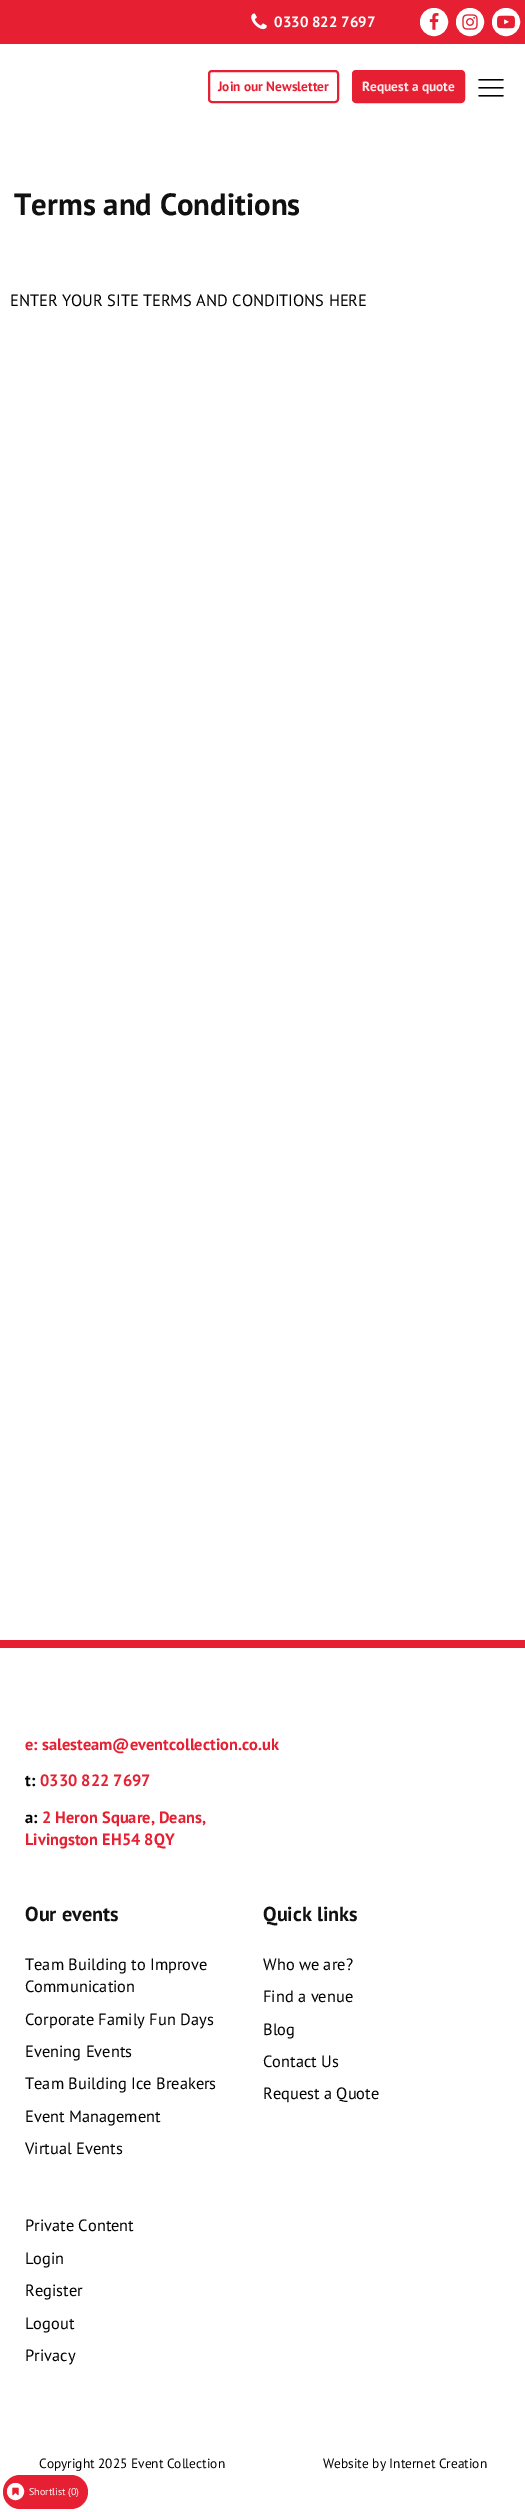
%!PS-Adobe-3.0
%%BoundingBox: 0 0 525 2512
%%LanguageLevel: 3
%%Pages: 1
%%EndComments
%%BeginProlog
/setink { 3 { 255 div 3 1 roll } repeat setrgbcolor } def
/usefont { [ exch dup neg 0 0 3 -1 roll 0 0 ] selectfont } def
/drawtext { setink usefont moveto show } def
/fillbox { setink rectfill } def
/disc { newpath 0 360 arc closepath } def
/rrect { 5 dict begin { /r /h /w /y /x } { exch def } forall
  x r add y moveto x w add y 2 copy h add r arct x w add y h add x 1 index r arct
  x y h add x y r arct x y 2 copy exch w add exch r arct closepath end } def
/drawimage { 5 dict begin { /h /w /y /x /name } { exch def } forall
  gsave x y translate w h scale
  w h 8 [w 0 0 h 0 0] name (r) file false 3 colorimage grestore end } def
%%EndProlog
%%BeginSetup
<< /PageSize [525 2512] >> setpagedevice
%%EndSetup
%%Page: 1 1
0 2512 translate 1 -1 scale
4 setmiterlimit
0 0 525 2512 255 255 255 fillbox
0 0 525 44 230 32 50 fillbox
(assets/img1.rgb) 251 13 16 17 drawimage
(0330 822 7697) 274 27 /PTSans-Bold 15 255 255 255 drawtext
434 22 13.5 disc gsave fill grestore
stroke
(assets/img2.rgb) 429 13 10 17 drawimage
470 22 13.5 disc gsave fill grestore
stroke
(assets/img3.rgb) 462 14 16 16 drawimage
506 22 13.5 disc gsave fill grestore
stroke
(assets/img4.rgb) 497 15 18 14 drawimage
230 32 50 setink
2 setlinewidth
209 71 129 31 3 rrect stroke
(Join our Newsletter) 218 91 /PTSans-Bold 13.4 230 32 50 drawtext
353 71 111 31 3 rrect gsave fill grestore
stroke
(Request a quote) 362 91 /PTSans-Bold 13.4 250 235 236 drawtext
(assets/img5.rgb) 478 79 26 18 drawimage
(Terms and Conditions) 14 215 /PTSans-Bold 30.75 17 17 17 drawtext
(ENTER YOUR SITE TERMS AND CONDITIONS HERE) 10 306 /PTSans-Regular 16.4 0 0 0 drawtext
0 1640 525 8 230 32 50 fillbox
(e: salesteam@eventcollection.co.uk) 25 1750 /PTSans-Bold 16.4 230 32 50 drawtext
(t:) 25 1786 /PTSans-Bold 16.4 0 0 0 drawtext
(0330 822 7697) 40 1786 /PTSans-Bold 16.4 230 32 50 drawtext
(a:) 25 1823 /PTSans-Bold 16.4 0 0 0 drawtext
(2 Heron Square, Deans,) 42 1823 /PTSans-Bold 16.4 230 32 50 drawtext
(Livingston EH54 8QY) 25 1845 /PTSans-Bold 16.4 230 32 50 drawtext
(Our events) 25 1921 /PTSans-Bold 20.25 17 17 17 drawtext
(Team Building to Improve) 25 1970 /PTSans-Regular 16.4 0 0 0 drawtext
(Communication) 25 1992 /PTSans-Regular 16.4 0 0 0 drawtext
(Corporate Family Fun Days) 25 2025 /PTSans-Regular 16.4 0 0 0 drawtext
(Evening Events) 25 2057 /PTSans-Regular 16.4 0 0 0 drawtext
(Team Building Ice Breakers) 25 2089 /PTSans-Regular 16.4 0 0 0 drawtext
(Event Management) 25 2122 /PTSans-Regular 16.4 0 0 0 drawtext
(Virtual Events) 25 2154 /PTSans-Regular 16.4 0 0 0 drawtext
(Quick links) 263 1921 /PTSans-Bold 20.25 17 17 17 drawtext
(Who we are?) 263 1970 /PTSans-Regular 16.4 0 0 0 drawtext
(Find a venue) 263 2002 /PTSans-Regular 16.4 0 0 0 drawtext
(Blog) 263 2035 /PTSans-Regular 16.4 0 0 0 drawtext
(Contact Us) 263 2067 /PTSans-Regular 16.4 0 0 0 drawtext
(Request a Quote) 263 2099 /PTSans-Regular 16.4 0 0 0 drawtext
(Private Content) 25 2231 /PTSans-Regular 16.4 0 0 0 drawtext
(Login) 25 2264 /PTSans-Regular 16.4 0 0 0 drawtext
(Register) 25 2296 /PTSans-Regular 16.4 0 0 0 drawtext
(Logout) 25 2329 /PTSans-Regular 16.4 0 0 0 drawtext
(Privacy) 25 2361 /PTSans-Regular 16.4 0 0 0 drawtext
(Copyright 2025 Event Collection) 39 2468 /PTSans-Regular 13.4 0 0 0 drawtext
(Website by Internet Creation) 323 2468 /PTSans-Regular 13.4 0 0 0 drawtext
230 32 50 setink
3 2475 85 34 17 rrect fill
255 255 255 setink
15.5 2491.5 8 disc gsave fill grestore
1 setlinewidth
stroke
(assets/img6.rgb) 12 2487 7 9 drawimage
(Shortlist \(0\)) 29 2495 /PTSans-Regular 10 255 255 255 drawtext
showpage
%%EOF
